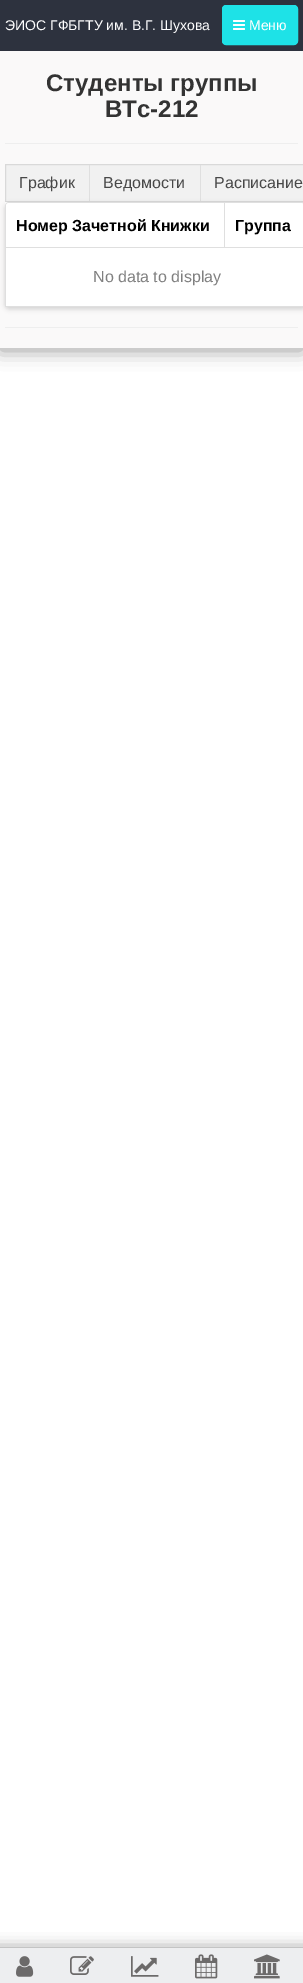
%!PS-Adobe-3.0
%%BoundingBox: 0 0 303 1983
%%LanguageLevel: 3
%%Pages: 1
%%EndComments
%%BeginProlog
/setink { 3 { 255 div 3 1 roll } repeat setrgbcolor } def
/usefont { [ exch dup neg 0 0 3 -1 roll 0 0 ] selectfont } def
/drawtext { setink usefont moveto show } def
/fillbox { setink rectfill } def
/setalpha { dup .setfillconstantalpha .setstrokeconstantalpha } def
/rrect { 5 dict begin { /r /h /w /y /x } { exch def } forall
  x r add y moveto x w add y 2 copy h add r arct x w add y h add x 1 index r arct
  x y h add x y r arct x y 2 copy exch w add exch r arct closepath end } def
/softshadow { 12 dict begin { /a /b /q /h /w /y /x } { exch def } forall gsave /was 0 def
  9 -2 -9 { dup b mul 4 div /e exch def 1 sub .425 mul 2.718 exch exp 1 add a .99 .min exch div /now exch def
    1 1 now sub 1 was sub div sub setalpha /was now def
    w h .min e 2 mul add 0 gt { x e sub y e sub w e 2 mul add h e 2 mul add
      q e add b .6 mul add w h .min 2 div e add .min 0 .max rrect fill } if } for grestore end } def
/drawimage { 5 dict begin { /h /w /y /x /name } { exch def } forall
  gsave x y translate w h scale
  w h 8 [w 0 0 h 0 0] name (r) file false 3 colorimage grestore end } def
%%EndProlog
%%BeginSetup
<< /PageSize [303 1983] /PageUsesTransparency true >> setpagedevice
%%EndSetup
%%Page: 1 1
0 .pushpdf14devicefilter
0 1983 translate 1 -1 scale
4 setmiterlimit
0 0 303 1983 255 255 255 fillbox
0 0 0 setink
0 2 303 348 0 9.5 0.4 softshadow
0 0 303 51 45 50 62 fillbox
(ЭИОС ГФБГТУ им. В.Г. Шухова) 5 30 /LiberationSans-Regular 14 255 255 255 drawtext
30 226 231 setink
222.5 5.5 75 39 3.5 rrect gsave fill grestore
stroke
(assets/img1.rgb) 233 20 12 10 drawimage
(Меню) 249 30 /LiberationSans-Regular 14 255 255 255 drawtext
0 51 303 297 250 249 249 fillbox
(Студенты группы) 46 91 /LiberationSans-Bold 24 51 51 51 drawtext
(ВТс-212) 105 117 /LiberationSans-Bold 24 51 51 51 drawtext
5 143 293 1 238 238 238 fillbox
241 241 241 setink
5.5 164.5 moveto 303.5 164.5 lineto 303.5 201.5 lineto 5.5 201.5 lineto closepath gsave fill grestore
217 217 217 setink
stroke
(График) 19 188 /LiberationSans-Regular 16 72 72 72 drawtext
89 165 1 36 223 223 223 fillbox
(Ведомости) 103 188 /LiberationSans-Regular 16 72 72 72 drawtext
200 165 1 36 223 223 223 fillbox
(Расписание) 214 188 /LiberationSans-Regular 16 72 72 72 drawtext
5 202 298 104 255 255 255 fillbox
gsave
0 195 moveto 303 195 lineto 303 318 lineto 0 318 lineto closepath 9 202 moveto 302 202 lineto 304 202 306 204 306 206 curveto 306 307 lineto 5 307 lineto 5 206 lineto 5 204 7 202 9 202 curveto closepath eoclip newpath
0 0 0 setink
5 204 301 105 4 2.5 0.16 softshadow
grestore
223 223 223 setink
9 202 moveto 302 202 lineto 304 202 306 204 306 206 curveto 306 307 lineto 5 307 lineto 5 206 lineto 5 204 7 202 9 202 curveto closepath 9 203 moveto 302 203 lineto 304 203 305 204 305 206 curveto 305 307 lineto 6 307 lineto 6 206 lineto 6 204 7 203 9 203 curveto closepath eofill
255 255 255 setink
9 203 moveto 224 203 lineto 224 247 lineto 6 247 lineto 6 206 lineto 6 204.5 7.5 203 9 203 curveto closepath fill
224 203 1 45 223 223 223 fillbox
6 247 297 1 223 223 223 fillbox
(Номер Зачетной Книжки) 16 231 /LiberationSans-Bold 16 0 0 0 drawtext
(Группа) 235 231 /LiberationSans-Bold 16 0 0 0 drawtext
6 306 297 1 223 223 223 fillbox
(No data to display) 93 282 /LiberationSans-Regular 16 128 128 128 drawtext
5 327 293 1 238 238 238 fillbox
0 0 0 setink
-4 1949 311 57 0 7.5 0.45 softshadow
0 1948 303 35 237 238 240 fillbox
(assets/img2.rgb) 16 1956 18 21 drawimage
(assets/img3.rgb) 70 1956 24 19 drawimage
(assets/img4.rgb) 131 1956 28 21 drawimage
(assets/img5.rgb) 195 1954 23 25 drawimage
(assets/img6.rgb) 254 1954 26 25 drawimage
.poppdf14devicefilter showpage
%%EOF
